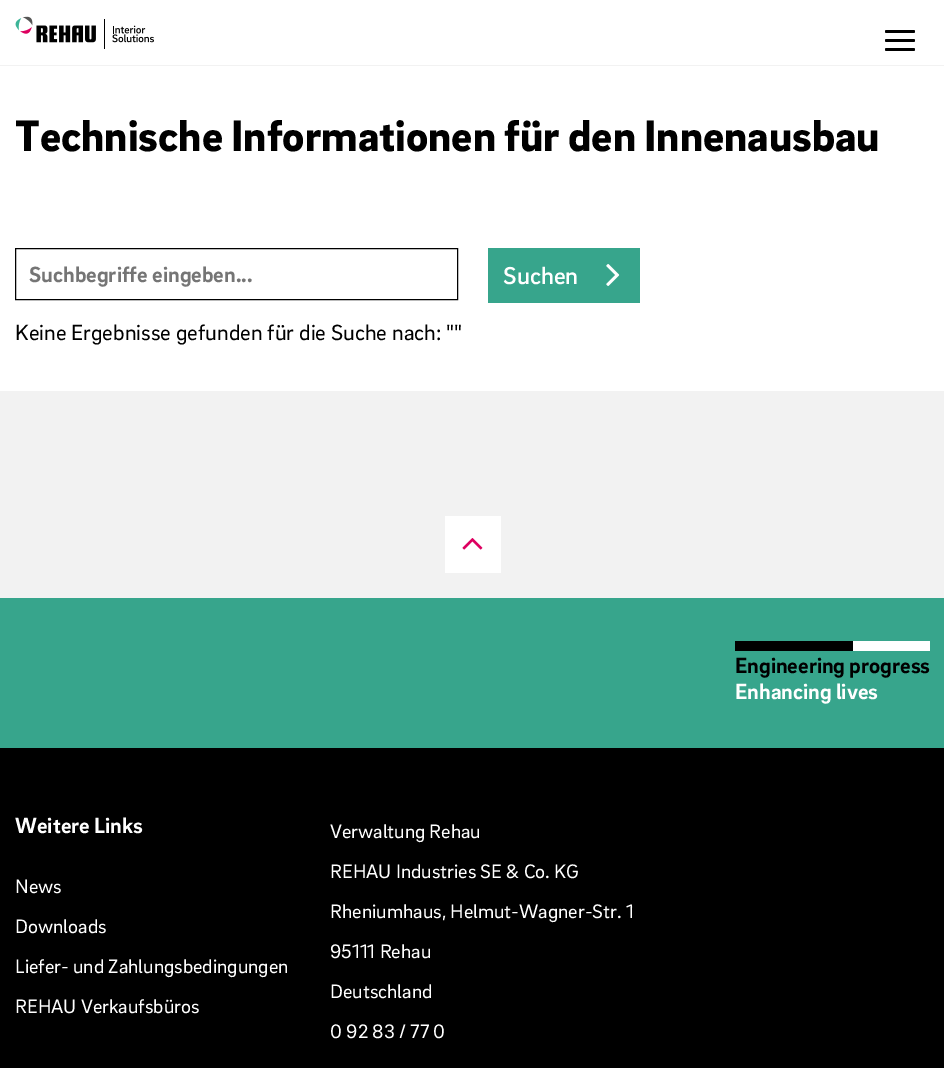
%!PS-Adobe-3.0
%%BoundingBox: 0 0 944 1068
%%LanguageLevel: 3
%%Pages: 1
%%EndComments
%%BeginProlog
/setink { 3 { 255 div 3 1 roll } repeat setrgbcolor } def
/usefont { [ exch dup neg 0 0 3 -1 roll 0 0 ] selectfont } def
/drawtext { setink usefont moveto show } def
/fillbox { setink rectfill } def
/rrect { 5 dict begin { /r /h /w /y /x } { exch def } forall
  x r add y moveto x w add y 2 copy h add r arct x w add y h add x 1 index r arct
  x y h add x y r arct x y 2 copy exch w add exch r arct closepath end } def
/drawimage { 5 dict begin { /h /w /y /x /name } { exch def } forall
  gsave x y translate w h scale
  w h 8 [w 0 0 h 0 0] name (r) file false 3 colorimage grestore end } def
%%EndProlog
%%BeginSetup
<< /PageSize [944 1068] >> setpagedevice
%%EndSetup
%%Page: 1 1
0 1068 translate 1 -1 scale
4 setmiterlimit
0 0 944 1068 255 255 255 fillbox
0 65 944 1 242 242 242 fillbox
(assets/img1.rgb) 15 16 139 33 drawimage
0 0 0 setink
885 39 30 3 1.5 rrect fill
885 30 30 3 1.5 rrect fill
885 48 30 3 1.5 rrect fill
(Technische Informationen für den Innenausbau) 15 151 /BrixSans-Black 45 0 0 0 drawtext
15.5 248.5 442 51 rectstroke
(Suchbegriffe eingeben...) 29 282 /BrixSans-Bold 22.5 117 117 117 drawtext
488 248 152 55 55 165 140 fillbox
(Suchen) 503 284 /BrixSans-Medium 25 255 255 255 drawtext
(assets/img2.rgb) 606 264 14 22 drawimage
(Keine Ergebnisse gefunden für die Suche nach: "") 15 340 /BrixSans-Regular 22.5 0 0 0 drawtext
0 391 944 207 242 242 242 fillbox
445 516 56 57 255 255 255 fillbox
(assets/img3.rgb) 462 538 21 12 drawimage
0 598 944 150 55 165 140 fillbox
735 641 118 10 0 0 0 fillbox
853 641 77 10 255 255 255 fillbox
(Engineering progress) 735 673 /BrixSans-Bold 22.5 0 0 0 drawtext
(Enhancing lives) 735 699 /BrixSans-Bold 22.5 255 255 255 drawtext
0 748 944 320 0 0 0 fillbox
(Weitere Links) 15 833 /BrixSans-Bold 22.5 255 255 255 drawtext
(News) 15 893 /BrixSans-Regular 20 255 255 255 drawtext
(Downloads) 15 933 /BrixSans-Regular 20 255 255 255 drawtext
(Liefer- und Zahlungsbedingungen) 15 973 /BrixSans-Regular 20 255 255 255 drawtext
(REHAU Verkaufsbüros) 15 1013 /BrixSans-Regular 20 255 255 255 drawtext
(Verwaltung Rehau) 330 838 /BrixSans-Regular 20 255 255 255 drawtext
(REHAU Industries SE & Co. KG) 330 878 /BrixSans-Regular 20 255 255 255 drawtext
(Rheniumhaus, Helmut-Wagner-Str. 1) 330 918 /BrixSans-Regular 20 255 255 255 drawtext
(95111 Rehau) 330 958 /BrixSans-Regular 20 255 255 255 drawtext
(Deutschland) 330 998 /BrixSans-Regular 20 255 255 255 drawtext
(0 92 83 / 77 0) 330 1038 /BrixSans-Regular 20 255 255 255 drawtext
showpage
%%EOF
